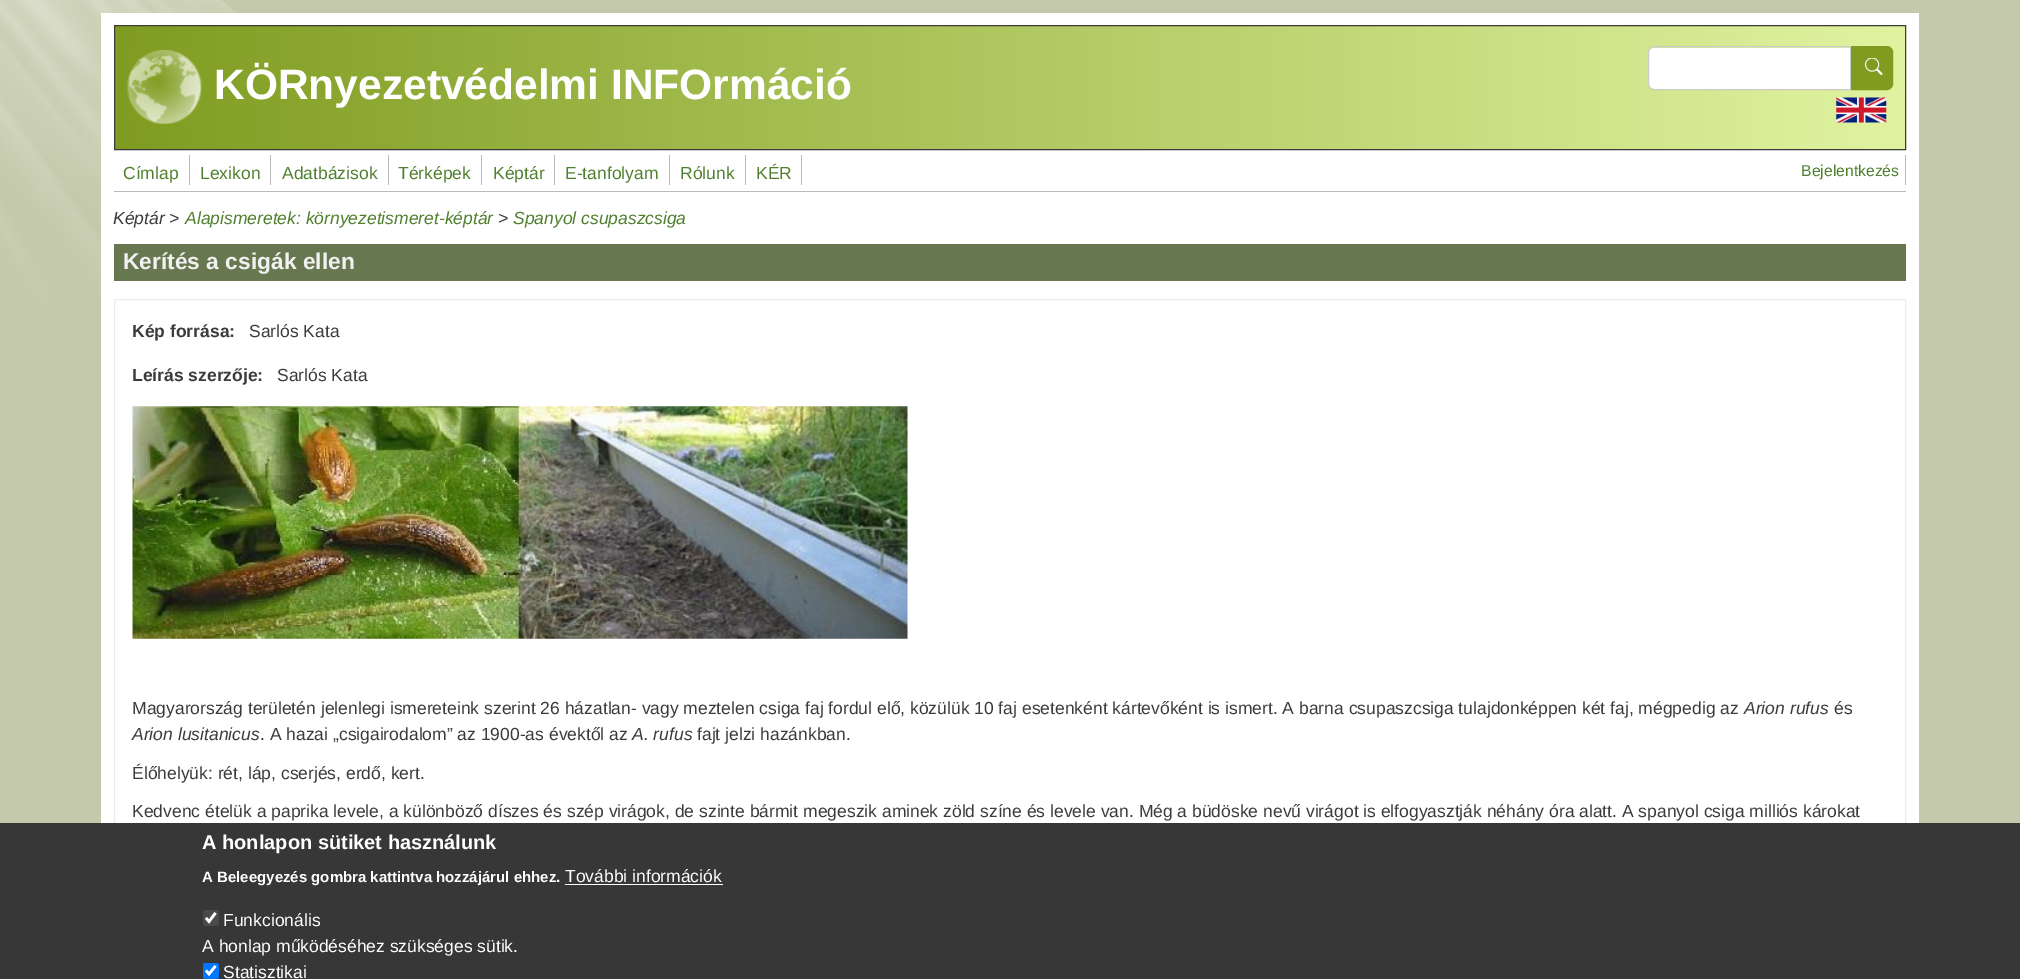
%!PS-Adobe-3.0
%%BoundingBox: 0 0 2020 979
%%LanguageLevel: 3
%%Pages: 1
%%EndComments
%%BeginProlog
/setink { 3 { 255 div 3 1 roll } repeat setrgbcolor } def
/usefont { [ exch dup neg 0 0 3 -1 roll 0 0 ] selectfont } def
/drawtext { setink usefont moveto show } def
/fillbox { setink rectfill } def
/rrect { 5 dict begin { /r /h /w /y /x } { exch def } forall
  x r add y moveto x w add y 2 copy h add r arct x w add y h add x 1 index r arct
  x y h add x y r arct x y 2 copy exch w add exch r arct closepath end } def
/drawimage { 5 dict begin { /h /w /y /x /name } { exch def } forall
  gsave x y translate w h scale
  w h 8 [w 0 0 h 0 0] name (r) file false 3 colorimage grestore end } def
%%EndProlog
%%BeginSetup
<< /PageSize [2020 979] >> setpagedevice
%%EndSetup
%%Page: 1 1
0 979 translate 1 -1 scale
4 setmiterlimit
0 0 2020 979 197 201 171 fillbox
(assets/img1.rgb) 0 0 237 309 drawimage
101 13 1818 810 255 255 255 fillbox
gsave 115 26 moveto 1905 26 lineto 1905 149 lineto 115 149 lineto closepath clip newpath
<< /ShadingType 2 /ColorSpace /DeviceRGB /Coords [115 88 1905 87] /Extend [true true] /Function << /FunctionType 2 /Domain [0 1] /C0 [0.498 0.612 0.129] /C1 [0.882 0.953 0.627] /N 1 >> >> shfill grestore
59 59 59 setink
114.5 25.5 1791 124 rectstroke
(assets/img2.rgb) 127 50 75 74 drawimage
(KÖRnyezetvédelmi INFOrmáció) 214 99 /LiberationSans-Bold 42.5 255 255 255 drawtext
1654 48 moveto 1850 48 lineto 1850 89 lineto 1654 89 lineto 1651 89 1649 87 1649 84 curveto 1649 53 lineto 1649 50 1651 48 1654 48 curveto closepath fill
204 204 204 setink
1654 46.5 moveto 1850.5 46.5 lineto 1850.5 89.5 lineto 1654 89.5 lineto 1651 89.5 1648.5 87 1648.5 84 curveto 1648.5 52 lineto 1648.5 49 1651 46.5 1654 46.5 curveto closepath stroke
127 156 33 setink
1851.5 46.5 moveto 1887 46.5 lineto 1890 46.5 1892.5 49 1892.5 52 curveto 1892.5 84 lineto 1892.5 87 1890 89.5 1887 89.5 curveto 1851.5 89.5 lineto closepath gsave fill grestore
stroke
(assets/img3.rgb) 1865 58 18 17 drawimage
(assets/img4.rgb) 1836 97 51 26 drawimage
114 191 1792 1 186 186 186 fillbox
189 155 1 30 186 186 186 fillbox
(Címlap) 123 179 /LiberationSans-Regular 17.5 80 127 47 drawtext
270 155 1 30 186 186 186 fillbox
(Lexikon) 200 179 /LiberationSans-Regular 17.5 80 127 47 drawtext
388 155 1 30 186 186 186 fillbox
(Adatbázisok) 282 179 /LiberationSans-Regular 17.5 80 127 47 drawtext
481 155 1 30 186 186 186 fillbox
(Térképek) 398 179 /LiberationSans-Regular 17.5 80 127 47 drawtext
554 155 1 30 186 186 186 fillbox
(Képtár) 493 179 /LiberationSans-Regular 17.5 80 127 47 drawtext
669 155 1 30 186 186 186 fillbox
(E-tanfolyam) 565 179 /LiberationSans-Regular 17.5 80 127 47 drawtext
745 155 1 30 186 186 186 fillbox
(Rólunk) 680 179 /LiberationSans-Regular 17.5 80 127 47 drawtext
801 155 1 30 186 186 186 fillbox
(KÉR) 756 179 /LiberationSans-Regular 17.5 80 127 47 drawtext
1905 155 1 30 186 186 186 fillbox
(Bejelentkezés) 1801 176 /LiberationSans-Regular 15.75 80 127 47 drawtext
(Képtár >) 113 224 /LiberationSans-Italic 17.5 59 59 59 drawtext
(Alapismeretek: környezetismeret-képtár) 185 224 /LiberationSans-Italic 17.5 80 127 47 drawtext
(>) 498 224 /LiberationSans-Italic 17.5 59 59 59 drawtext
(Spanyol csupaszcsiga) 513 224 /LiberationSans-Italic 17.5 80 127 47 drawtext
114 244 1792 37 103 119 80 fillbox
(Kerítés a csigák ellen) 123 269 /LiberationSans-Bold 22.75 241 241 241 drawtext
236 236 236 setink
114.5 299.5 1791 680 rectstroke
(Kép forrása:) 132 337 /LiberationSans-Bold 17.5 59 59 59 drawtext
(Sarlós Kata) 249 337 /LiberationSans-Regular 17.5 59 59 59 drawtext
(Leírás szerzője:) 132 381 /LiberationSans-Bold 17.5 59 59 59 drawtext
(Sarlós Kata) 277 381 /LiberationSans-Regular 17.5 59 59 59 drawtext
(assets/img5.rgb) 132 406 776 233 drawimage
(Magyarország területén jelenlegi ismereteink szerint 26 házatlan- vagy meztelen csiga faj fordul elő, közülük 10 faj esetenként kártevőként is ismert. A barna csupaszcsiga tulajdonképpen két faj, mégpedig az) 132 714 /LiberationSans-Regular 17.5 59 59 59 drawtext
(Arion rufus) 1744 714 /LiberationSans-Italic 17.5 59 59 59 drawtext
(és) 1834 714 /LiberationSans-Regular 17.5 59 59 59 drawtext
(Arion lusitanicus) 132 740 /LiberationSans-Italic 17.5 59 59 59 drawtext
(. A hazai „csigairodalom” az 1900-as évektől az) 260 740 /LiberationSans-Regular 17.5 59 59 59 drawtext
(A. rufus) 632 740 /LiberationSans-Italic 17.5 59 59 59 drawtext
(fajt jelzi hazánkban.) 697 740 /LiberationSans-Regular 17.5 59 59 59 drawtext
(Élőhelyük: rét, láp, cserjés, erdő, kert.) 132 779 /LiberationSans-Regular 17.5 59 59 59 drawtext
(Kedvenc ételük a paprika levele, a különböző díszes és szép virágok, de szinte bármit megeszik aminek zöld színe és levele van. Még a büdöske nevű virágot is elfogyasztják néhány óra alatt. A spanyol csiga milliós károkat) 132 817 /LiberationSans-Regular 17.5 59 59 59 drawtext
0 823 2020 156 55 55 55 fillbox
(A honlapon sütiket használunk) 202 849 /LiberationSans-Bold 20 255 255 255 drawtext
(A Beleegyezés gombra kattintva hozzájárul ehhez.) 202 882 /LiberationSans-Bold 15 255 255 255 drawtext
(További információk) 565 882 /LiberationSans-Regular 17.5 255 255 255 drawtext
565 884 158 1 255 255 255 fillbox
74 74 74 setink
203 910 16 16 2.5 rrect fill
255 255 255 setink
2.6 setlinewidth
206 918 moveto 209 921.5 lineto 215.5 913 lineto stroke
(Funkcionális) 223 926 /LiberationSans-Regular 17.5 255 255 255 drawtext
(A honlap működéséhez szükséges sütik.) 202 952 /LiberationSans-Regular 17.5 255 255 255 drawtext
0 117 255 setink
203 963 16 16 2.5 rrect fill
255 255 255 setink
206 970.5 moveto 209 974 lineto 215.5 966 lineto stroke
(Statisztikai) 223 978 /LiberationSans-Regular 17.5 255 255 255 drawtext
showpage
%%EOF
